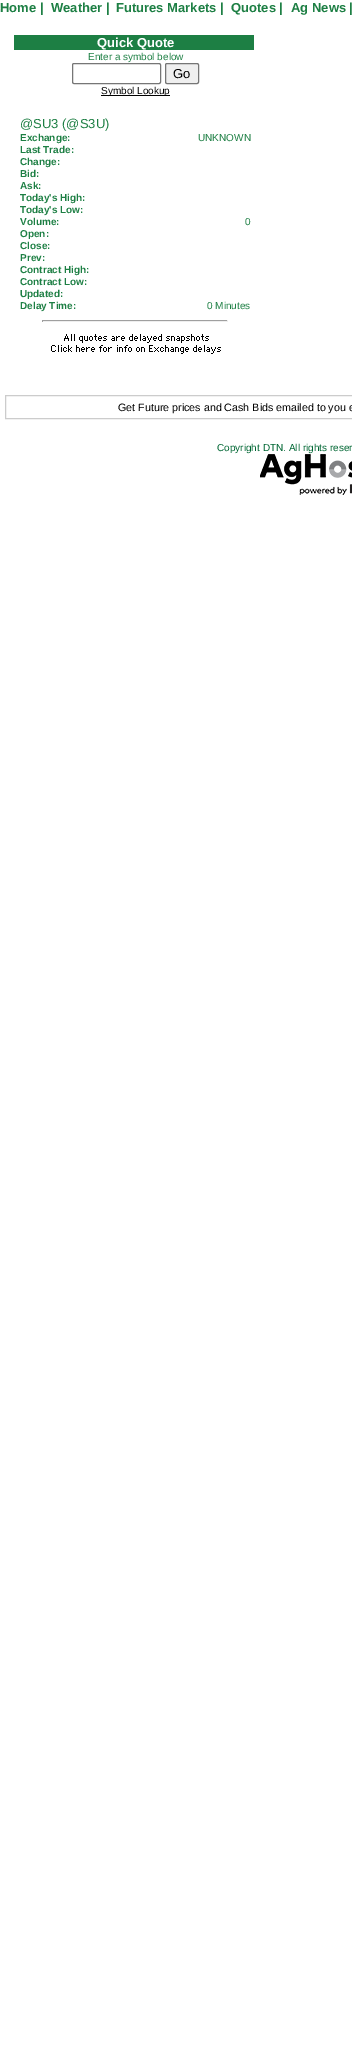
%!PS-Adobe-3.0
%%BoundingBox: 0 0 352 2048
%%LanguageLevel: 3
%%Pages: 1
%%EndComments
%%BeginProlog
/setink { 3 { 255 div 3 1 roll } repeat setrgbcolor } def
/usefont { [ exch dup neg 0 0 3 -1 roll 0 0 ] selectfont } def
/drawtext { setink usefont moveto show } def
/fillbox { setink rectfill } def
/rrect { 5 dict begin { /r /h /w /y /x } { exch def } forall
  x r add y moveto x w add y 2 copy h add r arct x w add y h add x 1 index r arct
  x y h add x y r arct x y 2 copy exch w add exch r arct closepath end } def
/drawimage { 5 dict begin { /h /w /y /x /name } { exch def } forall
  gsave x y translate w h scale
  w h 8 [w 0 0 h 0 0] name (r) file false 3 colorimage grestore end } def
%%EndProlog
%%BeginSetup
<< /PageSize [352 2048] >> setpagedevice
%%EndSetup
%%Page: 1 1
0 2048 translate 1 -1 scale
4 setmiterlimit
0 0 352 2048 255 255 255 fillbox
(Home |) 0 12 /LiberationSans-Bold 13 29 127 68 drawtext
(Weather |) 51 12 /LiberationSans-Bold 13 29 127 68 drawtext
(Futures Markets |) 116 12 /LiberationSans-Bold 13 29 127 68 drawtext
(Quotes |) 231 12 /LiberationSans-Bold 13 29 127 68 drawtext
(Ag News |) 291 12 /LiberationSans-Bold 13 29 127 68 drawtext
14 35 240 15 29 127 68 fillbox
(Quick Quote) 97 47 /LiberationSans-Bold 13 255 255 255 drawtext
(Enter a symbol below) 88 60 /LiberationSans-Regular 10 29 127 68 drawtext
118 118 118 setink
72.5 63.5 88 20 1.5 rrect stroke
239 239 239 setink
165.5 63.5 33 20 1.5 rrect gsave fill grestore
118 118 118 setink
stroke
(Go) 173 78 /LiberationSans-Regular 13 0 0 0 drawtext
101 95 69 1 0 0 0 fillbox
(Symbol Lookup) 101 94 /LiberationSans-Regular 10 0 0 0 drawtext
(@SU3 \(@S3U\)) 20 128 /LiberationSans-Regular 13 29 127 68 drawtext
(Exchange:) 20 141 /LiberationSans-Bold 10 29 127 68 drawtext
(UNKNOWN) 198 141 /LiberationSans-Regular 10 29 127 68 drawtext
(Last Trade:) 20 153 /LiberationSans-Bold 10 29 127 68 drawtext
(Change:) 20 165 /LiberationSans-Bold 10 29 127 68 drawtext
(Bid:) 20 177 /LiberationSans-Bold 10 29 127 68 drawtext
(Ask:) 20 189 /LiberationSans-Bold 10 29 127 68 drawtext
(Today's High:) 20 201 /LiberationSans-Bold 10 29 127 68 drawtext
(Today's Low:) 20 213 /LiberationSans-Bold 10 29 127 68 drawtext
(Volume:) 20 225 /LiberationSans-Bold 10 29 127 68 drawtext
(0) 245 225 /LiberationSans-Regular 10 29 127 68 drawtext
(Open:) 20 237 /LiberationSans-Bold 10 29 127 68 drawtext
(Close:) 20 249 /LiberationSans-Bold 10 29 127 68 drawtext
(Prev:) 20 261 /LiberationSans-Bold 10 29 127 68 drawtext
(Contract High:) 20 273 /LiberationSans-Bold 10 29 127 68 drawtext
(Contract Low:) 20 285 /LiberationSans-Bold 10 29 127 68 drawtext
(Updated:) 20 297 /LiberationSans-Bold 10 29 127 68 drawtext
(Delay Time:) 20 309 /LiberationSans-Bold 10 29 127 68 drawtext
(0 Minutes) 207 309 /LiberationSans-Regular 10 29 127 68 drawtext
42 320 186 1 159 159 159 fillbox
227 320 1 2 238 238 238 fillbox
42 321 186 1 238 238 238 fillbox
42 320 1 2 159 159 159 fillbox
(assets/img1.rgb) 51 334 170 20 drawimage
204 204 204 setink
5.5 395.5 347 23 rectstroke
(Get Future prices and Cash Bids emailed to you e) 118 411 /LiberationSans-Regular 10.7 0 0 0 drawtext
(Copyright DTN. All rights reser) 217 451 /LiberationSans-Regular 10 0 102 51 drawtext
(assets/img2.rgb) 260 454 92 41 drawimage
showpage
%%EOF
